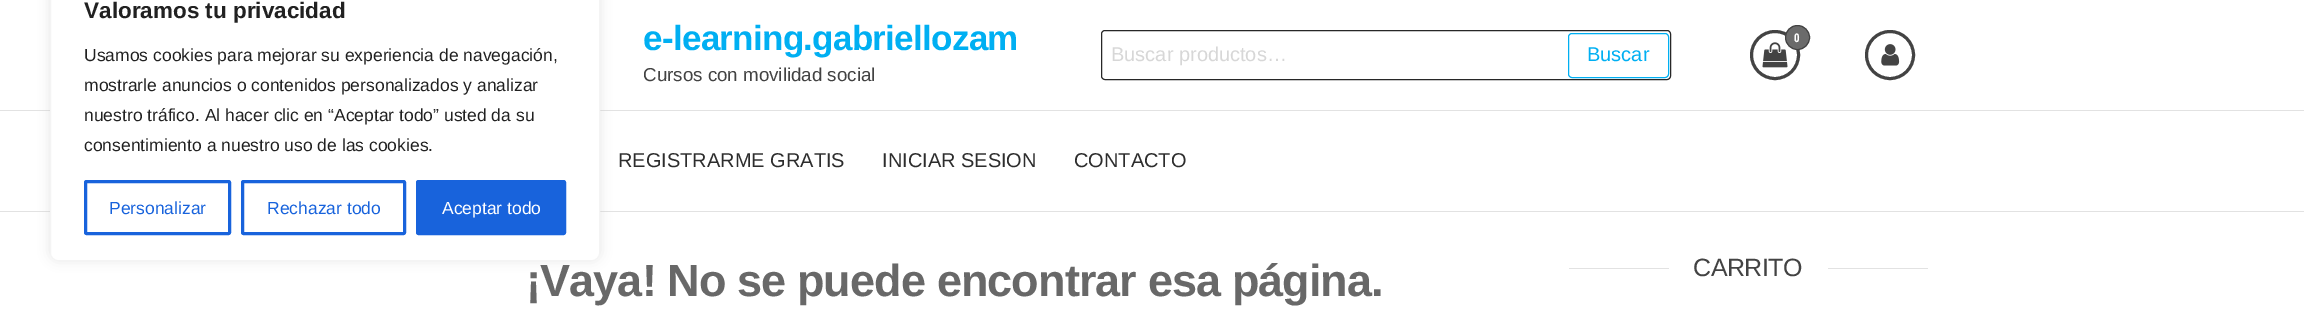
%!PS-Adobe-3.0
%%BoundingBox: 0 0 2304 311
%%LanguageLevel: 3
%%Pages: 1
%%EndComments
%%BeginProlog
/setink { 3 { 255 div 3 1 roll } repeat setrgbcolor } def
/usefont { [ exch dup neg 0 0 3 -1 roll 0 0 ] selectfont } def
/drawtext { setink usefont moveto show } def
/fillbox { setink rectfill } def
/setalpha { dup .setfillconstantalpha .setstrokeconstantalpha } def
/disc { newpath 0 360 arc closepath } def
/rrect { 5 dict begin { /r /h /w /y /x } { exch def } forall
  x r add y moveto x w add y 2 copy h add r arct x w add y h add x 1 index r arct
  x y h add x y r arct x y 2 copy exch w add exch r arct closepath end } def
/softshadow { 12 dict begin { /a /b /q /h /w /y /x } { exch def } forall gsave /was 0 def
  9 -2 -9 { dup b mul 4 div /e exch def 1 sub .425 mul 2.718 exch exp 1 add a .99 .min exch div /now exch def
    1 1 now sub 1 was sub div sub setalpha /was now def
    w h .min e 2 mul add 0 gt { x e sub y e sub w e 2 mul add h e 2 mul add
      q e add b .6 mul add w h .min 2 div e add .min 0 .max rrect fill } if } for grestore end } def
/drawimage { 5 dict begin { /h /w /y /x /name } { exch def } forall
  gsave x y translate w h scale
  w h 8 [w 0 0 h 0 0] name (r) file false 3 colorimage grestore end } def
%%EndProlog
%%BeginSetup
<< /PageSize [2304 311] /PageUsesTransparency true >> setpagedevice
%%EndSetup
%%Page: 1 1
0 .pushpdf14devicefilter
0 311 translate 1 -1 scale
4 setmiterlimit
0 0 2304 311 255 255 255 fillbox
0 110 2304 1 226 226 226 fillbox
0 211 2304 1 226 226 226 fillbox
172 171 171 setink
50 -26 550 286 8 6 0.3 softshadow
255 255 255 setink
50.5 -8.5 549 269 7.5 rrect gsave fill grestore
244 244 244 setink
stroke
(Valoramos tu privacidad) 84 18 /LiberationSans-Bold 22.5 33 33 33 drawtext
(Usamos cookies para mejorar su experiencia de navegación,) 84 61 /LiberationSans-Regular 17.5 33 33 33 drawtext
(mostrarle anuncios o contenidos personalizados y analizar) 84 91 /LiberationSans-Regular 17.5 33 33 33 drawtext
(nuestro tráfico. Al hacer clic en “Aceptar todo” usted da su) 84 121 /LiberationSans-Regular 17.5 33 33 33 drawtext
(consentimiento a nuestro uso de las cookies.) 84 151 /LiberationSans-Regular 17.5 33 33 33 drawtext
24 99 220 setink
3 setlinewidth
85.5 181.5 144 52 1 rrect stroke
(Personalizar) 109 214 /LiberationSans-Regular 17.5 24 99 220 drawtext
242.5 181.5 162 52 1 rrect stroke
(Rechazar todo) 267 214 /LiberationSans-Regular 17.5 24 99 220 drawtext
417.5 181.5 147 52 1 rrect gsave fill grestore
stroke
(Aceptar todo) 442 214 /LiberationSans-Regular 17.5 255 255 255 drawtext
/LiberationSans-Bold 35 usefont
0 175 242 setink
643 50 moveto -0.7 0 (e-learning.gabriellozam) ashow
(Cursos con movilidad social) 643 81 /LiberationSans-Regular 18.75 67 67 67 drawtext
1775 55 23.5 disc stroke
(assets/img1.rgb) 1762 42 26 26 drawimage
107 107 107 setink
1797.5 37.5 12 disc gsave fill grestore
67 67 67 setink
1 setlinewidth
stroke
(0) 1794 42 /OpenSansCondensed-Bold 12 255 255 255 drawtext
67 67 67 setink
3 setlinewidth
1890 55 23.5 disc stroke
(assets/img2.rgb) 1881 44 19 22 drawimage
39 39 39 setink
1 setlinewidth
1101.5 30.5 569 49 3.5 rrect stroke
(Buscar productos…) 1111 61 /LiberationSans-Regular 20 215 215 215 drawtext
0 175 242 setink
1568.5 33.5 100 44 3.5 rrect stroke
(Buscar) 1587 61 /LiberationSans-Regular 20 0 175 242 drawtext
(REGISTRARME GRATIS) 618 167 /LiberationSans-Regular 20 45 45 45 drawtext
(INICIAR SESION) 882 167 /LiberationSans-Regular 20 45 45 45 drawtext
(CONTACTO) 1074 167 /LiberationSans-Regular 20 45 45 45 drawtext
/LiberationSans-Bold 45 usefont
104 104 104 setink
526 296 moveto -0.9 0 (¡Vaya! No se puede encontrar esa página.) ashow
1569 268 359 1 226 226 226 fillbox
1669 268 159 1 255 255 255 fillbox
/LiberationSans-Regular 25 usefont
67 67 67 setink
1693 276 moveto -0.5 0 (CARRITO) ashow
.poppdf14devicefilter showpage
%%EOF
